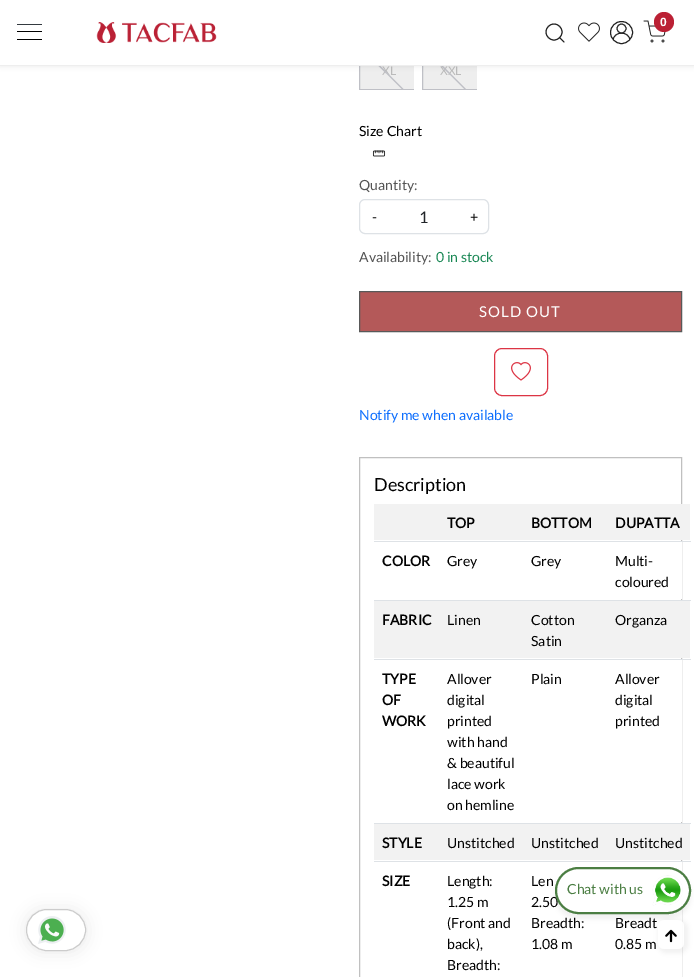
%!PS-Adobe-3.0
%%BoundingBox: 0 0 694 977
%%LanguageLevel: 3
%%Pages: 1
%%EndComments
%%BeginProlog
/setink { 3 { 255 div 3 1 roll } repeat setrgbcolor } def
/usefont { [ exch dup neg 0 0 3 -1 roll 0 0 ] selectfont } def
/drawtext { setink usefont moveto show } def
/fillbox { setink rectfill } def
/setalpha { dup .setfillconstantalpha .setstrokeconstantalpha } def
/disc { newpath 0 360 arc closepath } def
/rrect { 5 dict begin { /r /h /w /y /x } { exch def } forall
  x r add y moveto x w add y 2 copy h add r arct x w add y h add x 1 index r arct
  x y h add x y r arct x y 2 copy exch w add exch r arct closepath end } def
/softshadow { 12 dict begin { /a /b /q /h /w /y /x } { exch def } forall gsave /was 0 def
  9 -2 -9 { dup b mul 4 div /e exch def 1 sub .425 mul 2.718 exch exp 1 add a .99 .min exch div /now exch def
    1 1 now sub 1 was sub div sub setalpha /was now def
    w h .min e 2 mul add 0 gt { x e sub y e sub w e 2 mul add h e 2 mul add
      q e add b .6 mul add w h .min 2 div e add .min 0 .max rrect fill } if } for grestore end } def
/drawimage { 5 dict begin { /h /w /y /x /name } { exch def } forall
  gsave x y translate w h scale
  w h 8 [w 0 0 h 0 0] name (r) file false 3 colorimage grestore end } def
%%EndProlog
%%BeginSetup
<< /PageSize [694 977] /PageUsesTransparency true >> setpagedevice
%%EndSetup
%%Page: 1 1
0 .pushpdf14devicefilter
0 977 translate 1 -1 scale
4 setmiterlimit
0 0 694 977 255 255 255 fillbox
360 66 54 23 238 238 238 fillbox
gsave
359 55 55 35 rectclip
191 192 198 setink
359.5 55.5 59 34 rectstroke
grestore
(XL) 382 75 /Lato-Regular 12 187 187 187 drawtext
gsave
359 55 55 35 rectclip
191 192 198 setink
367.5 53 moveto 406.5 92 lineto 406 93 lineto 366.5 54 lineto closepath fill
grestore
423 66 54 23 238 238 238 fillbox
gsave
422 55 55 35 rectclip
191 192 198 setink
422.5 55.5 59 34 rectstroke
grestore
(XXL) 440 75 /Lato-Regular 12 187 187 187 drawtext
gsave
422 55 55 35 rectclip
191 192 198 setink
430 53 moveto 469 92 lineto 468.5 93 lineto 429 54 lineto closepath fill
grestore
5 5 10 setink
0 0 694 66 0 2.5 0.08 softshadow
0 65 694 1 238 238 238 fillbox
0 0 694 65 255 255 255 fillbox
0 0 0 setink
17 39 25 1 0.5 rrect fill
17 31 25 1 0.5 rrect fill
52 58 64 setink
17 24 25 1 0.5 rrect fill
(assets/img1.rgb) 96 22 121 21 drawimage
33 33 33 setink
554 32 8 disc stroke
1 setlinecap
1 setlinejoin
564 42 moveto 559.5 37.5 lineto stroke
(assets/img2.rgb) 578 22 22 20 drawimage
0 setlinecap
0 setlinejoin
621.5 32.5 11 disc stroke
gsave
611 22 21 21 10.5 rrect clip newpath
0.9 setlinewidth
2 setlinecap
613 41 moveto 613 30.5 630 30.5 630 41 curveto stroke
grestore
0.9 setlinewidth
621.5 28.5 4.5 disc stroke
(assets/img3.rgb) 643 20 23 23 drawimage
187 32 52 setink
664 22 10 disc fill
(0) 660 26 /LiberationSans-Bold 12 255 255 255 drawtext
(Size Chart) 359 136 /Lato-Regular 14 0 0 0 drawtext
(assets/img4.rgb) 372 150 14 7 drawimage
(Quantity:) 359 190 /Lato-Regular 14 84 84 84 drawtext
222 226 230 setink
1 setlinewidth
359.5 199.5 129 34 5.5 rrect stroke
(-) 372 222 /Lato-Regular 14 0 0 0 drawtext
(1) 419 223 /Lato-Regular 16 33 37 41 drawtext
(+) 470 222 /Lato-Regular 14 0 0 0 drawtext
(Availability:) 359 262 /Lato-Regular 14 84 84 84 drawtext
(0 in stock) 436 262 /Lato-Regular 14 25 135 84 drawtext
180 89 89 setink
359.5 291.5 moveto 681.5 291.5 lineto 681.5 331.5 lineto 359.5 331.5 lineto closepath gsave fill grestore
89 89 89 setink
stroke
/Lato-Regular 15 usefont
255 255 255 setink
479 317 moveto 1 0 (SOLD OUT) ashow
220 53 69 setink
494.5 348.5 53 47 7.5 rrect stroke
(assets/img5.rgb) 511 362 20 19 drawimage
(Notify me when available) 359 420 /Lato-Regular 14 13 110 253 drawtext
192 192 192 setink
359.5 457.5 322 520 rectstroke
(Description) 374 491 /Lato-Regular 18 0 0 0 drawtext
374 504 316 36 242 242 242 fillbox
(TOP) 447 528 /Lato-Bold 14 0 0 0 drawtext
(BOTTOM) 531 528 /Lato-Bold 14 0 0 0 drawtext
374 541 317 1 222 226 230 fillbox
(DUPATTA) 615 528 /Lato-Bold 14 0 0 0 drawtext
(COLOR) 382 566 /Lato-Bold 14 0 0 0 drawtext
(Grey) 447 566 /Lato-Regular 14 0 0 0 drawtext
(Grey) 531 566 /Lato-Regular 14 0 0 0 drawtext
681 542 1 57 255 255 255 fillbox
374 600 317 1 222 226 230 fillbox
(Multi-) 615 566 /Lato-Regular 14 0 0 0 drawtext
(coloured) 615 587 /Lato-Regular 14 0 0 0 drawtext
374 601 316 57 242 242 242 fillbox
(FABRIC) 382 625 /Lato-Bold 14 0 0 0 drawtext
(Linen) 447 625 /Lato-Regular 14 0 0 0 drawtext
(Cotton) 531 625 /Lato-Regular 14 0 0 0 drawtext
(Satin) 531 646 /Lato-Regular 14 0 0 0 drawtext
374 659 317 1 222 226 230 fillbox
(Organza) 615 625 /Lato-Regular 14 0 0 0 drawtext
(TYPE) 382 684 /Lato-Bold 14 0 0 0 drawtext
(OF) 382 705 /Lato-Bold 14 0 0 0 drawtext
(WORK) 382 726 /Lato-Bold 14 0 0 0 drawtext
(Allover) 447 684 /Lato-Regular 14 0 0 0 drawtext
(digital) 447 705 /Lato-Regular 14 0 0 0 drawtext
(printed) 447 726 /Lato-Regular 14 0 0 0 drawtext
(with hand) 447 747 /Lato-Regular 14 0 0 0 drawtext
(& beautiful) 447 768 /Lato-Regular 14 0 0 0 drawtext
(lace work) 447 789 /Lato-Regular 14 0 0 0 drawtext
(on hemline) 447 810 /Lato-Regular 14 0 0 0 drawtext
(Plain) 531 684 /Lato-Regular 14 0 0 0 drawtext
681 660 1 162 255 255 255 fillbox
374 823 317 1 222 226 230 fillbox
(Allover) 615 684 /Lato-Regular 14 0 0 0 drawtext
(digital) 615 705 /Lato-Regular 14 0 0 0 drawtext
(printed) 615 726 /Lato-Regular 14 0 0 0 drawtext
374 824 316 36 242 242 242 fillbox
(STYLE) 382 848 /Lato-Bold 14 0 0 0 drawtext
(Unstitched) 447 848 /Lato-Regular 14 0 0 0 drawtext
(Unstitched) 531 848 /Lato-Regular 14 0 0 0 drawtext
374 861 317 1 222 226 230 fillbox
(Unstitched) 615 848 /Lato-Regular 14 0 0 0 drawtext
(SIZE) 382 886 /Lato-Bold 14 0 0 0 drawtext
(Length:) 447 886 /Lato-Regular 14 0 0 0 drawtext
(1.25 m) 447 907 /Lato-Regular 14 0 0 0 drawtext
(\(Front and) 447 928 /Lato-Regular 14 0 0 0 drawtext
(back\),) 447 949 /Lato-Regular 14 0 0 0 drawtext
(Breadth:) 447 970 /Lato-Regular 14 0 0 0 drawtext
(Len) 531 886 /Lato-Regular 14 0 0 0 drawtext
(2.50) 531 907 /Lato-Regular 14 0 0 0 drawtext
(Breadth:) 531 928 /Lato-Regular 14 0 0 0 drawtext
(1.08 m) 531 949 /Lato-Regular 14 0 0 0 drawtext
681 862 1 115 255 255 255 fillbox
(Breadt) 615 928 /Lato-Regular 14 0 0 0 drawtext
(0.85 m) 615 949 /Lato-Regular 14 0 0 0 drawtext
32 33 36 setink
26 910 60 42 21 7.5 0.1 softshadow
255 255 255 setink
26.5 909.5 59 41 20.5 rrect gsave fill grestore
204 204 204 setink
stroke
(assets/img6.rgb) 38 916 28 28 drawimage
0 0 0 setink
555 872 136 47 23.5 2.5 0.05 softshadow
255 255 255 setink
556 868 134 45 22.5 rrect gsave fill grestore
75 126 67 setink
2 setlinewidth
stroke
(Chat with us) 567 894 /Lato-Regular 14 75 126 67 drawtext
(assets/img7.rgb) 652 875 31 31 drawimage
gsave
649 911 moveto 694 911 lineto 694 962 lineto 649 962 lineto closepath 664 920 moveto 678 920 lineto 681.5 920 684 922.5 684 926 curveto 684 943 lineto 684 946.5 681.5 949 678 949 curveto 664 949 lineto 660.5 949 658 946.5 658 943 curveto 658 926 lineto 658 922.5 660.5 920 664 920 curveto closepath eoclip newpath
0 0 0 setink
658 920 30 33 8 2.5 0.05 softshadow
grestore
0.9 setalpha
255 255 255 setink
658 920 26 29 6 rrect fill
1 setalpha
(assets/img8.rgb) 665 929 12 14 drawimage
.poppdf14devicefilter showpage
%%EOF
